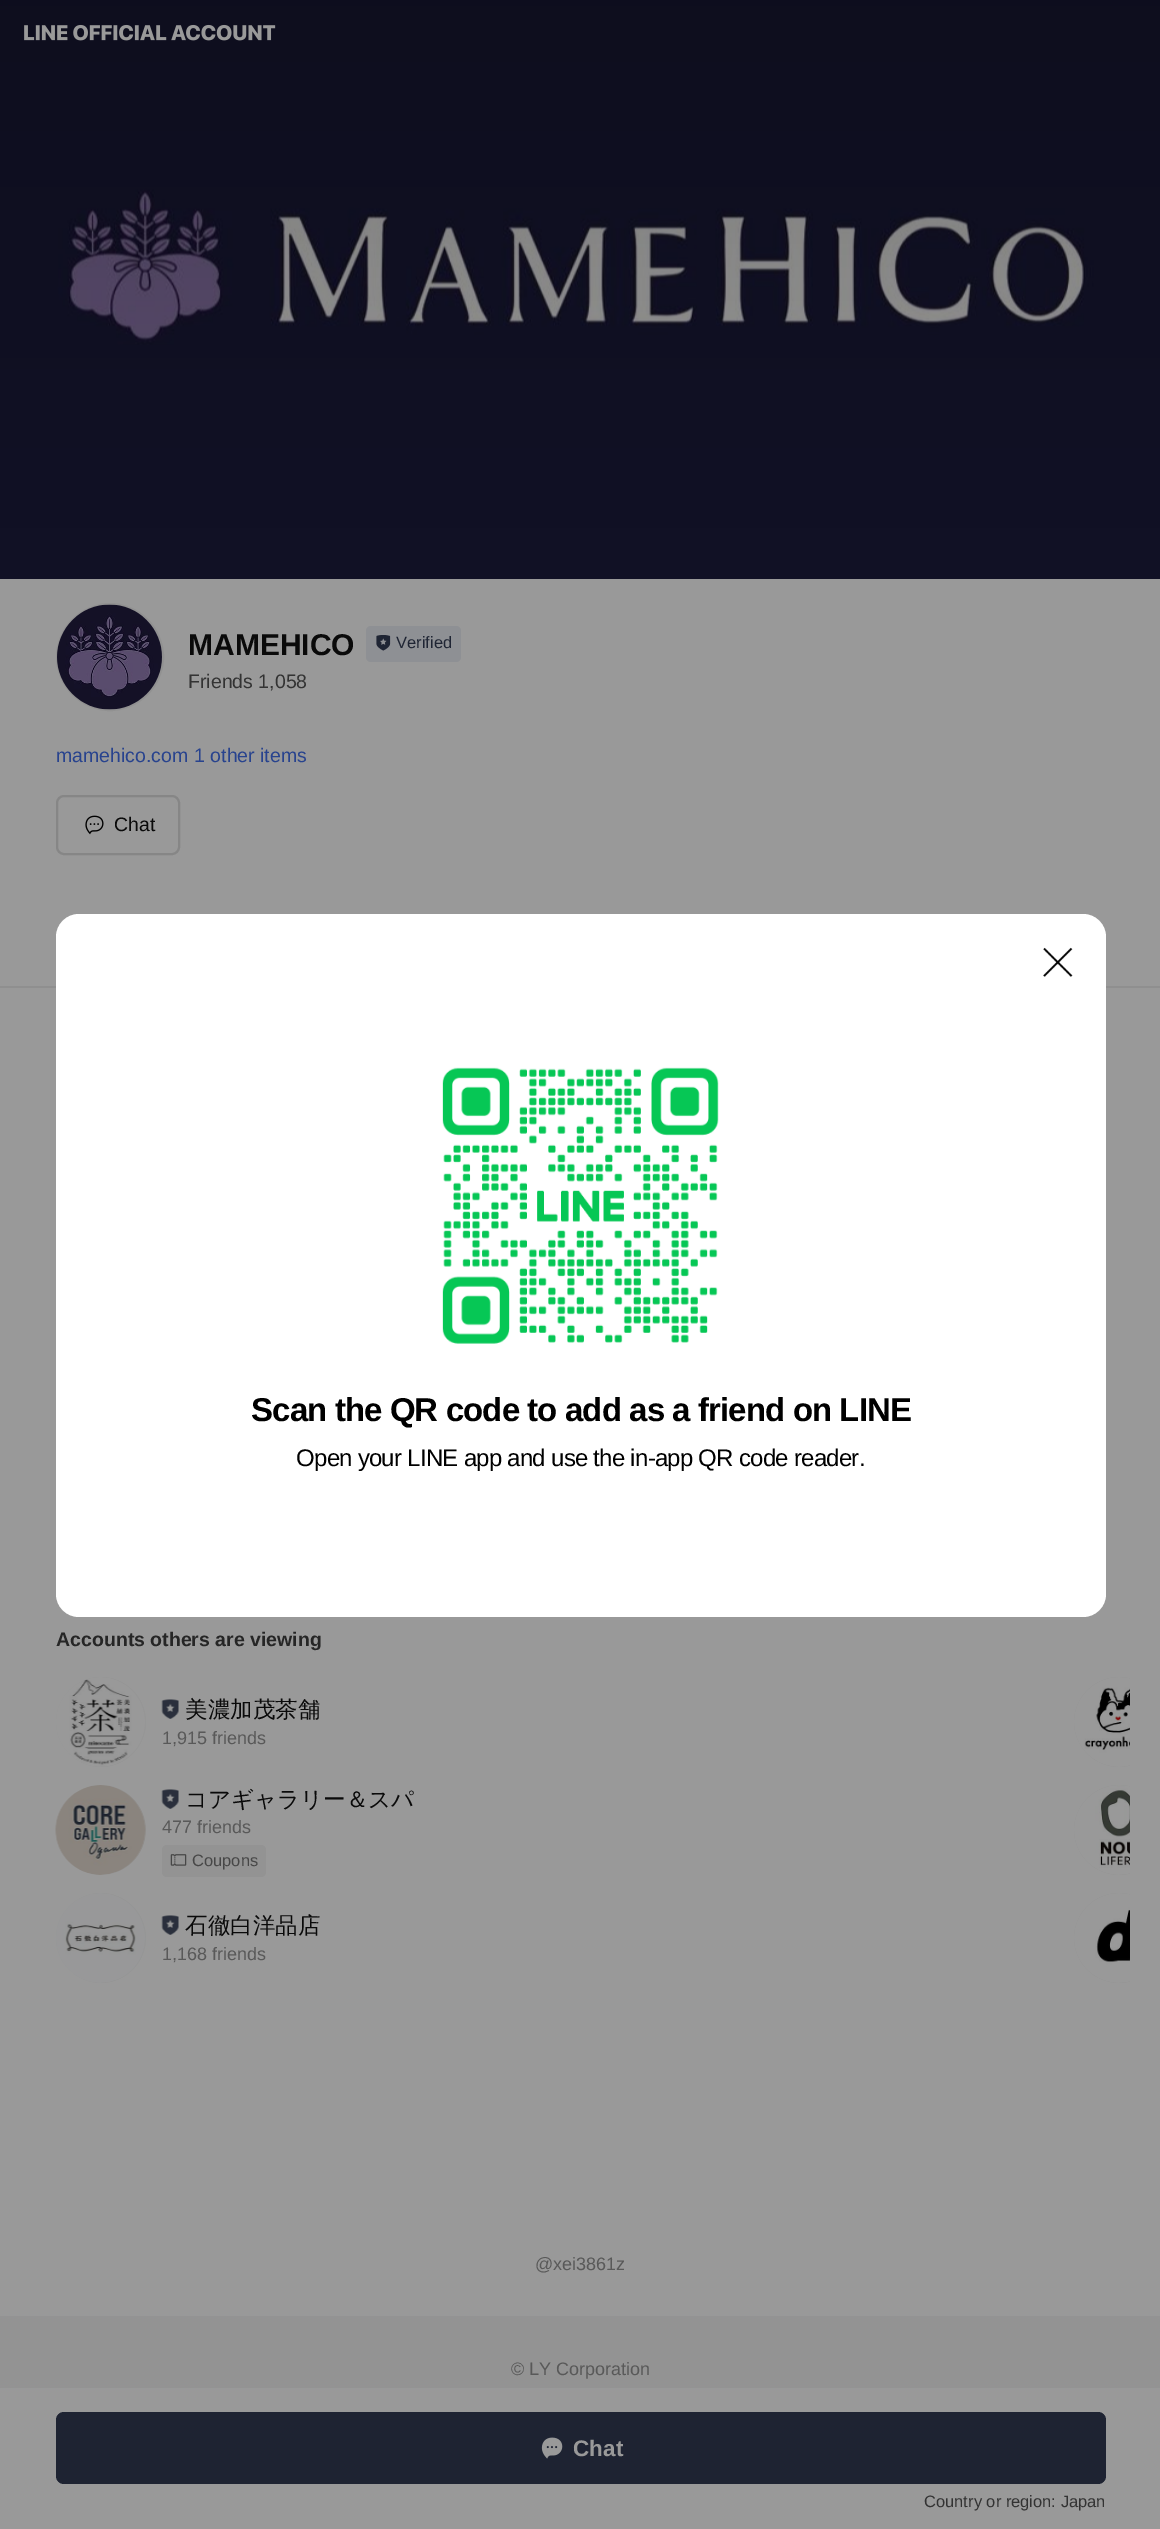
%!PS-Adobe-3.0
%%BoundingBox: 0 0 1160 2529
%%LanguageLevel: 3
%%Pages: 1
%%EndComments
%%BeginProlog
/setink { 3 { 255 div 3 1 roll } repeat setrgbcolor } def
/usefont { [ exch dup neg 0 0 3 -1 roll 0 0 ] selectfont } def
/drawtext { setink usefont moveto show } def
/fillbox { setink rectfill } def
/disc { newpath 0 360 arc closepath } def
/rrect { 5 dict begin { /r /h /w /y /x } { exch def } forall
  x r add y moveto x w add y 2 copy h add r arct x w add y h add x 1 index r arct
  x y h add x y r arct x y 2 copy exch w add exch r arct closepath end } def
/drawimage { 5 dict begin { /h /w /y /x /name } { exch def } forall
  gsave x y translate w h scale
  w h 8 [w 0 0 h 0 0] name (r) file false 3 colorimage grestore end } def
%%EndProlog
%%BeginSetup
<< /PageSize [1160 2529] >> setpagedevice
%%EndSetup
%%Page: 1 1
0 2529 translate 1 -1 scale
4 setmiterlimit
0 0 1160 2529 153 153 153 fillbox
(assets/img2.rgb) 0 0 1160 579 drawimage
(assets/img1.rgb) 24 24 252 17 drawimage
145 145 145 setink
2 setlinewidth
110 657 53 disc stroke
(assets/img3.rgb) 57 604 105 106 drawimage
(MAMEHICO) 188 655 /LiberationSans-Bold 30 10 10 10 drawtext
142 144 148 setink
366 626 95 36 5 rrect fill
(assets/img4.rgb) 376 635 15 16 drawimage
(Verified) 396 648 /LiberationSans-Regular 16.5 31 37 52 drawtext
(Friends 1,058) 188 688 /LiberationSans-Regular 19.5 51 51 51 drawtext
(mamehico.com) 56 762 /LiberationSans-Regular 19.5 40 67 142 drawtext
(1 other items) 194 762 /LiberationSans-Regular 19.5 40 67 142 drawtext
134 134 134 setink
57 796 122 58 7 rrect stroke
(assets/img5.rgb) 85 815 19 20 drawimage
(Chat) 114 831 /LiberationSans-Regular 19.5 10 10 10 drawtext
0 986 1160 2 143 143 143 fillbox
(Accounts others are viewing) 56 1646 /LiberationSans-Bold 19.5 38 38 38 drawtext
147 147 147 setink
101 1722 45 disc fill
(assets/img6.rgb) 56 1677 90 90 drawimage
(assets/img7.rgb) 161 1699 18 20 drawimage
(美濃加茂茶舗) 185 1717 /WenQuanYiZenHei-Medium 22.5 10 10 10 drawtext
(1,915 friends) 162 1744 /LiberationSans-Regular 18 89 89 89 drawtext
147 147 147 setink
101 1830 45 disc fill
(assets/img8.rgb) 55 1785 91 90 drawimage
(assets/img7.rgb) 161 1789 18 20 drawimage
(コアギャラリー＆スパ) 185 1807 /WenQuanYiZenHei-Medium 22.5 10 10 10 drawtext
(477 friends) 162 1833 /LiberationSans-Regular 18 89 89 89 drawtext
147 147 147 setink
162 1845 104 32 5 rrect fill
(assets/img9.rgb) 170 1854 17 12 drawimage
(Coupons) 192 1866 /LiberationSans-Regular 16.5 71 71 71 drawtext
147 147 147 setink
101 1938 45 disc fill
(assets/img10.rgb) 56 1893 90 90 drawimage
(assets/img7.rgb) 161 1915 18 20 drawimage
(石徹白洋品店) 185 1933 /WenQuanYiZenHei-Medium 22.5 10 10 10 drawtext
(1,168 friends) 162 1960 /LiberationSans-Regular 18 89 89 89 drawtext
gsave
32 1667 1098 324 rectclip
147 147 147 setink
1119 1722 45 disc fill
grestore
(assets/img11.rgb) 1074 1677 56 90 drawimage
gsave
32 1667 1098 324 rectclip
147 147 147 setink
1119 1830 45 disc fill
grestore
(assets/img12.rgb) 1074 1785 56 90 drawimage
gsave
32 1667 1098 324 rectclip
147 147 147 setink
1119 1938 45 disc fill
grestore
(assets/img13.rgb) 1074 1893 56 90 drawimage
(@xei3861z) 535 2270 /LiberationSans-Regular 18 89 89 89 drawtext
0 2316 1160 72 147 147 147 fillbox
(© LY Corporation) 511 2375 /LiberationSans-Regular 18 89 89 89 drawtext
30 35 50 setink
56 2412 1050 72 8 rrect fill
(assets/img14.rgb) 541 2437 22 22 drawimage
(Chat) 573 2456 /LiberationSans-Bold 22.5 153 153 153 drawtext
(Country or region: Japan) 924 2507 /LiberationSans-Regular 16.5 51 51 51 drawtext
255 255 255 setink
56 914 1050 703 23 rrect fill
(assets/img15.rgb) 1043 947 30 30 drawimage
(assets/img16.rgb) 442 1067 277 277 drawimage
/LiberationSans-Bold 33 usefont
0 0 0 setink
251 1421 moveto -0.9 0 (Scan the QR code to add as a friend on LINE) ashow
/LiberationSans-Regular 24 usefont
296 1466 moveto -0.75 0 (Open your LINE app and use the in-app QR code reader.) ashow
showpage
%%EOF
